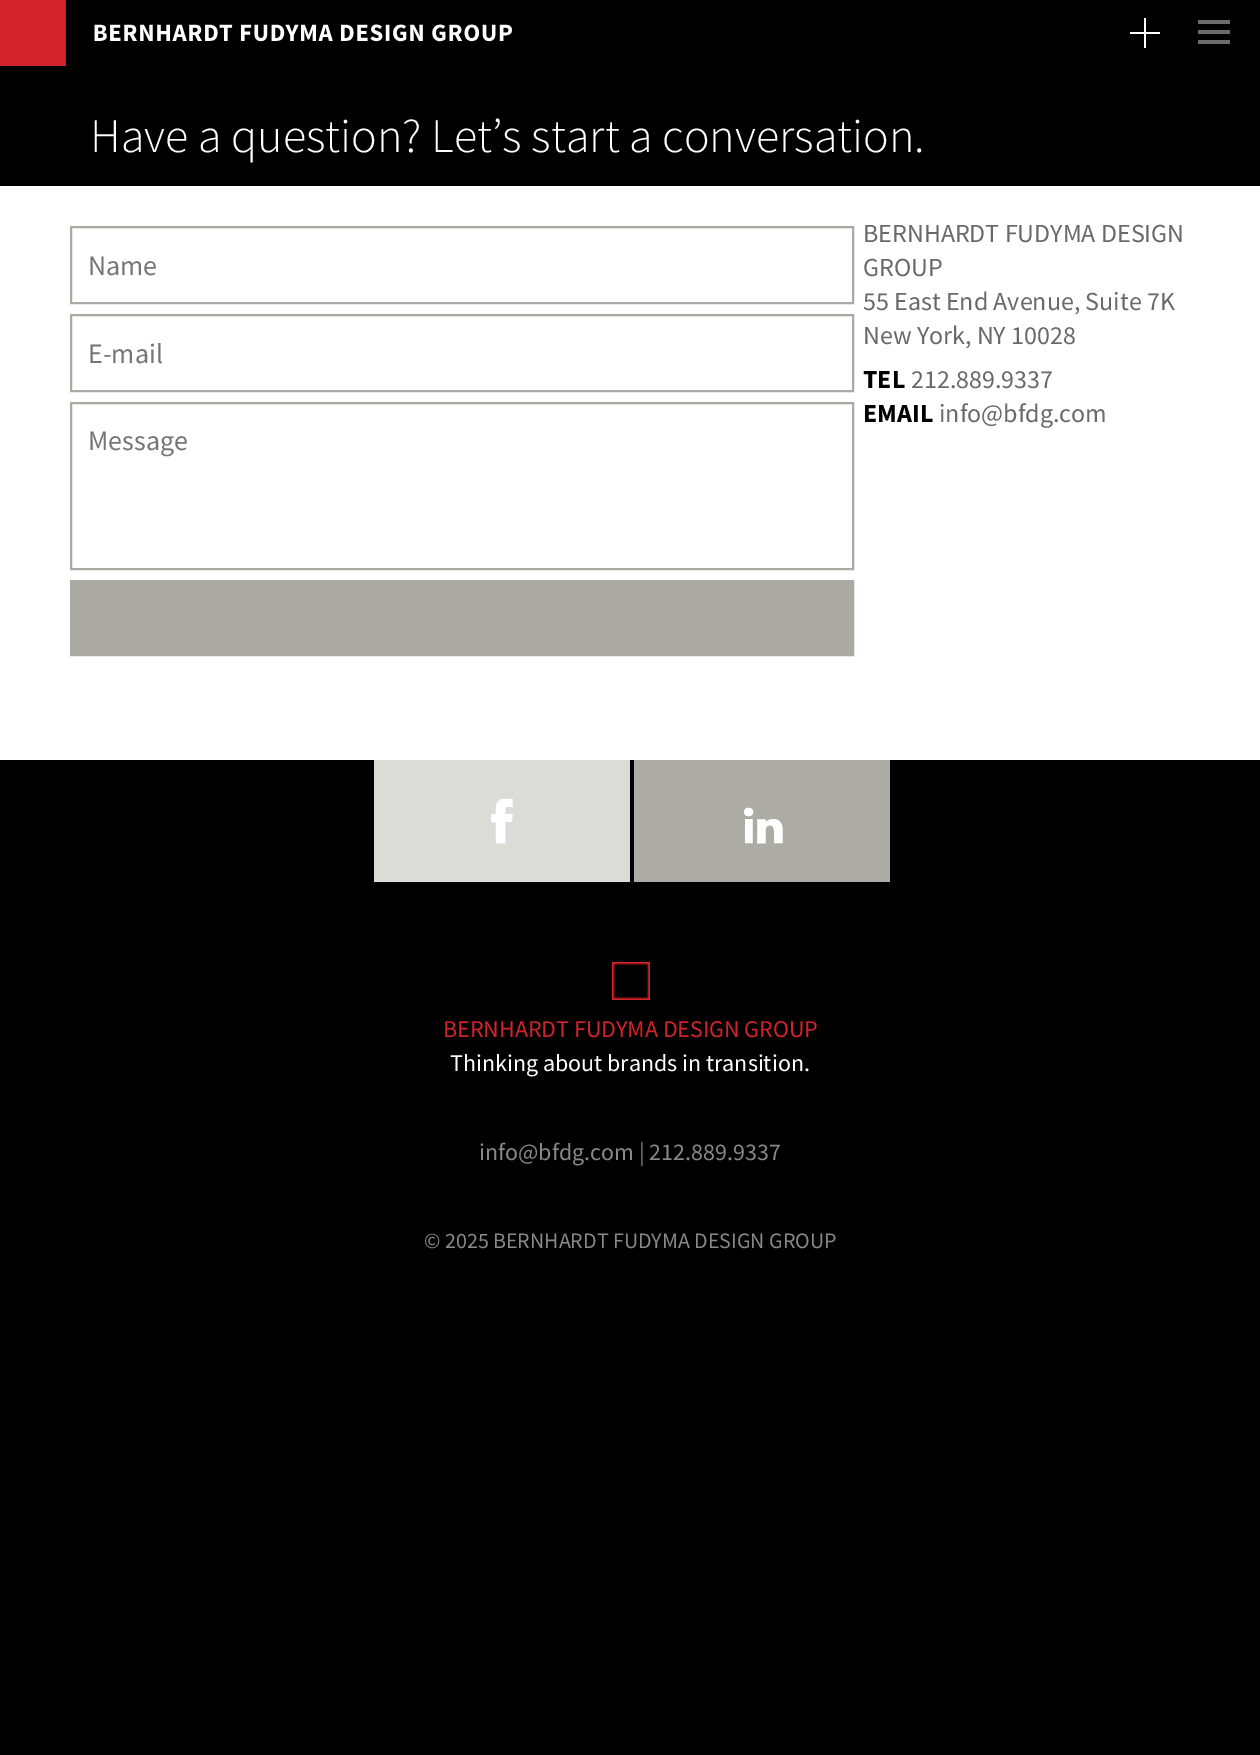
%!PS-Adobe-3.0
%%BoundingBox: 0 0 1260 1755
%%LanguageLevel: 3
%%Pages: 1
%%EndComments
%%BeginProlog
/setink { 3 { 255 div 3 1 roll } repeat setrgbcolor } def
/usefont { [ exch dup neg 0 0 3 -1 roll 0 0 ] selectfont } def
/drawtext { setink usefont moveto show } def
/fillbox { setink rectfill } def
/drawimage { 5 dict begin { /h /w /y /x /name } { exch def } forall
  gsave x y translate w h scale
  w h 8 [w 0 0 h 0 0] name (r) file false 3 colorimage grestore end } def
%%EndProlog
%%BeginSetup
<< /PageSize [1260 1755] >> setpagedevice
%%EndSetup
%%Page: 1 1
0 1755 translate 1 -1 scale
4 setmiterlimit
0 0 1260 1755 0 0 0 fillbox
(assets/img1.rgb) 0 0 512 66 drawimage
1130 32 30 2 255 255 255 fillbox
1144 18 2 30 255 255 255 fillbox
1198 20 32 4 107 107 107 fillbox
1198 30 32 4 107 107 107 fillbox
1198 40 32 4 107 107 107 fillbox
(Have a question? Let’s start a conversation.) 90 152 /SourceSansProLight-Light 48 255 255 255 drawtext
0 186 1260 574 255 255 255 fillbox
170 170 163 setink
2 setlinewidth
71 227 782 76 rectstroke
(Name) 88 275 /SourceSansPro-Regular 28 117 117 117 drawtext
170 170 163 setink
71 315 782 76 rectstroke
(E-mail) 88 363 /SourceSansPro-Regular 28 117 117 117 drawtext
170 170 163 setink
71 403 782 166 rectstroke
(Message) 88 450 /SourceSansPro-Regular 28 117 117 117 drawtext
171 171 163 setink
71 581 moveto 853 581 lineto 853 655 lineto 71 655 lineto closepath gsave fill grestore
170 170 163 setink
stroke
(BERNHARDT FUDYMA DESIGN) 863 242 /SourceSansPro-Regular 26 105 105 105 drawtext
(GROUP) 863 276 /SourceSansPro-Regular 26 105 105 105 drawtext
(55 East End Avenue, Suite 7K) 863 310 /SourceSansPro-Regular 26 105 105 105 drawtext
(New York, NY 10028) 863 344 /SourceSansPro-Regular 26 105 105 105 drawtext
(TEL) 863 388 /SourceSansPro-Bold 26 0 0 0 drawtext
(212.889.9337) 911 388 /SourceSansPro-Regular 26 105 105 105 drawtext
(EMAIL) 863 422 /SourceSansPro-Bold 26 0 0 0 drawtext
(info@bfdg.com) 939 422 /SourceSansPro-Regular 26 105 105 105 drawtext
(assets/img2.rgb) 374 760 256 122 drawimage
(assets/img3.rgb) 634 760 256 122 drawimage
(assets/img4.rgb) 612 962 38 38 drawimage
(BERNHARDT FUDYMA DESIGN GROUP) 443 1037 /SourceSansPro-Regular 24 210 35 42 drawtext
(Thinking about brands in transition.) 450 1071 /SourceSansPro-Regular 24 255 255 255 drawtext
(info@bfdg.com | 212.889.9337) 479 1160 /SourceSansPro-Regular 24 137 137 132 drawtext
(© 2025 BERNHARDT FUDYMA DESIGN GROUP) 424 1248 /SourceSansPro-Regular 22 137 137 132 drawtext
showpage
%%EOF
